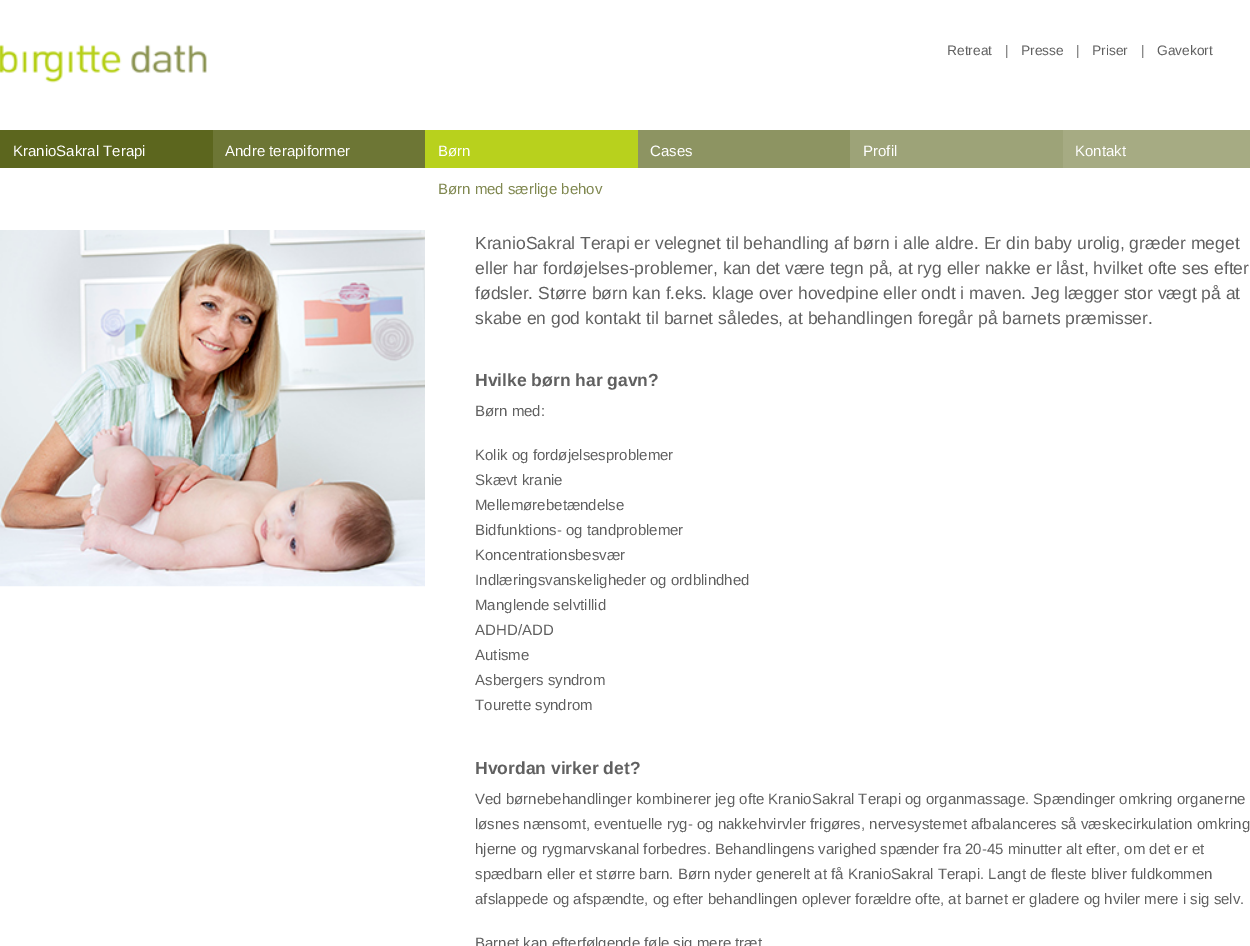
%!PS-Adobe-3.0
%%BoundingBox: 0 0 1250 946
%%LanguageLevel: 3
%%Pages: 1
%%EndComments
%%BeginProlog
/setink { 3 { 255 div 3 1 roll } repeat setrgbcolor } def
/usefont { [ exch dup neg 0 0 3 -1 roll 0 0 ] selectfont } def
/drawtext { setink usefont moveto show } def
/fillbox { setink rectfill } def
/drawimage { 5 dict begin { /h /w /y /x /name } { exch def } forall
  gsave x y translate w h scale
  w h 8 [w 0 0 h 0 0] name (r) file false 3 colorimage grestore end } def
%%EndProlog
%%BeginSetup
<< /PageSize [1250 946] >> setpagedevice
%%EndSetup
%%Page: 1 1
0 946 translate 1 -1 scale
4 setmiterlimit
0 0 1250 946 255 255 255 fillbox
(assets/img1.rgb) 0 44 207 39 drawimage
(Retreat) 947 55 /LiberationSans-Regular 13.75 96 96 96 drawtext
(|) 1005 55 /LiberationSans-Regular 13.75 96 96 96 drawtext
(Presse) 1021 55 /LiberationSans-Regular 13.75 96 96 96 drawtext
(|) 1076 55 /LiberationSans-Regular 13.75 96 96 96 drawtext
(Priser) 1092 55 /LiberationSans-Regular 13.75 96 96 96 drawtext
(|) 1141 55 /LiberationSans-Regular 13.75 96 96 96 drawtext
(Gavekort) 1157 55 /LiberationSans-Regular 13.75 96 96 96 drawtext
0 130 213 38 92 102 30 fillbox
(KranioSakral Terapi) 13 156 /LiberationSans-Regular 15 255 255 255 drawtext
213 130 212 38 109 118 53 fillbox
(Andre terapiformer) 225 156 /LiberationSans-Regular 15 255 255 255 drawtext
425 130 213 38 184 209 29 fillbox
(Børn) 438 156 /LiberationSans-Regular 15 255 255 255 drawtext
(Børn med særlige behov) 438 194 /LiberationSans-Regular 15 128 136 80 drawtext
638 130 212 38 141 148 98 fillbox
(Cases) 650 156 /LiberationSans-Regular 15 255 255 255 drawtext
850 130 213 38 157 163 120 fillbox
(Profil) 863 156 /LiberationSans-Regular 15 255 255 255 drawtext
1063 130 187 38 166 171 131 fillbox
(Kontakt) 1075 156 /LiberationSans-Regular 15 255 255 255 drawtext
(assets/img2.rgb) 0 230 425 357 drawimage
(KranioSakral Terapi er velegnet til behandling af børn i alle aldre. Er din baby urolig, græder meget) 475 249 /LiberationSans-Regular 17.5 96 96 96 drawtext
(eller har fordøjelses-problemer, kan det være tegn på, at ryg eller nakke er låst, hvilket ofte ses efter) 475 274 /LiberationSans-Regular 17.5 96 96 96 drawtext
(fødsler. Større børn kan f.eks. klage over hovedpine eller ondt i maven. Jeg lægger stor vægt på at) 475 299 /LiberationSans-Regular 17.5 96 96 96 drawtext
(skabe en god kontakt til barnet således, at behandlingen foregår på barnets præmisser.) 475 324 /LiberationSans-Regular 17.5 96 96 96 drawtext
(Hvilke børn har gavn?) 475 386 /LiberationSans-Bold 17.5 96 96 96 drawtext
(Børn med:) 475 416 /LiberationSans-Regular 15 96 96 96 drawtext
(Kolik og fordøjelsesproblemer) 475 460 /LiberationSans-Regular 15 96 96 96 drawtext
(Skævt kranie) 475 485 /LiberationSans-Regular 15 96 96 96 drawtext
(Mellemørebetændelse) 475 510 /LiberationSans-Regular 15 96 96 96 drawtext
(Bidfunktions- og tandproblemer) 475 535 /LiberationSans-Regular 15 96 96 96 drawtext
(Koncentrationsbesvær) 475 560 /LiberationSans-Regular 15 96 96 96 drawtext
(Indlæringsvanskeligheder og ordblindhed) 475 585 /LiberationSans-Regular 15 96 96 96 drawtext
(Manglende selvtillid) 475 610 /LiberationSans-Regular 15 96 96 96 drawtext
(ADHD/ADD) 475 635 /LiberationSans-Regular 15 96 96 96 drawtext
(Autisme) 475 660 /LiberationSans-Regular 15 96 96 96 drawtext
(Asbergers syndrom) 475 685 /LiberationSans-Regular 15 96 96 96 drawtext
(Tourette syndrom) 475 710 /LiberationSans-Regular 15 96 96 96 drawtext
(Hvordan virker det?) 475 774 /LiberationSans-Bold 17.5 96 96 96 drawtext
(Ved børnebehandlinger kombinerer jeg ofte KranioSakral Terapi og organmassage. Spændinger omkring organerne) 475 804 /LiberationSans-Regular 15 96 96 96 drawtext
(løsnes nænsomt, eventuelle ryg- og nakkehvirvler frigøres, nervesystemet afbalanceres så væskecirkulation omkring) 475 829 /LiberationSans-Regular 15 96 96 96 drawtext
(hjerne og rygmarvskanal forbedres. Behandlingens varighed spænder fra 20-45 minutter alt efter, om det er et) 475 854 /LiberationSans-Regular 15 96 96 96 drawtext
(spædbarn eller et større barn. Børn nyder generelt at få KranioSakral Terapi. Langt de fleste bliver fuldkommen) 475 879 /LiberationSans-Regular 15 96 96 96 drawtext
(afslappede og afspændte, og efter behandlingen oplever forældre ofte, at barnet er gladere og hviler mere i sig selv.) 475 904 /LiberationSans-Regular 15 96 96 96 drawtext
(Barnet kan efterfølgende føle sig mere træt) 475 948 /LiberationSans-Regular 15 96 96 96 drawtext
showpage
%%EOF
